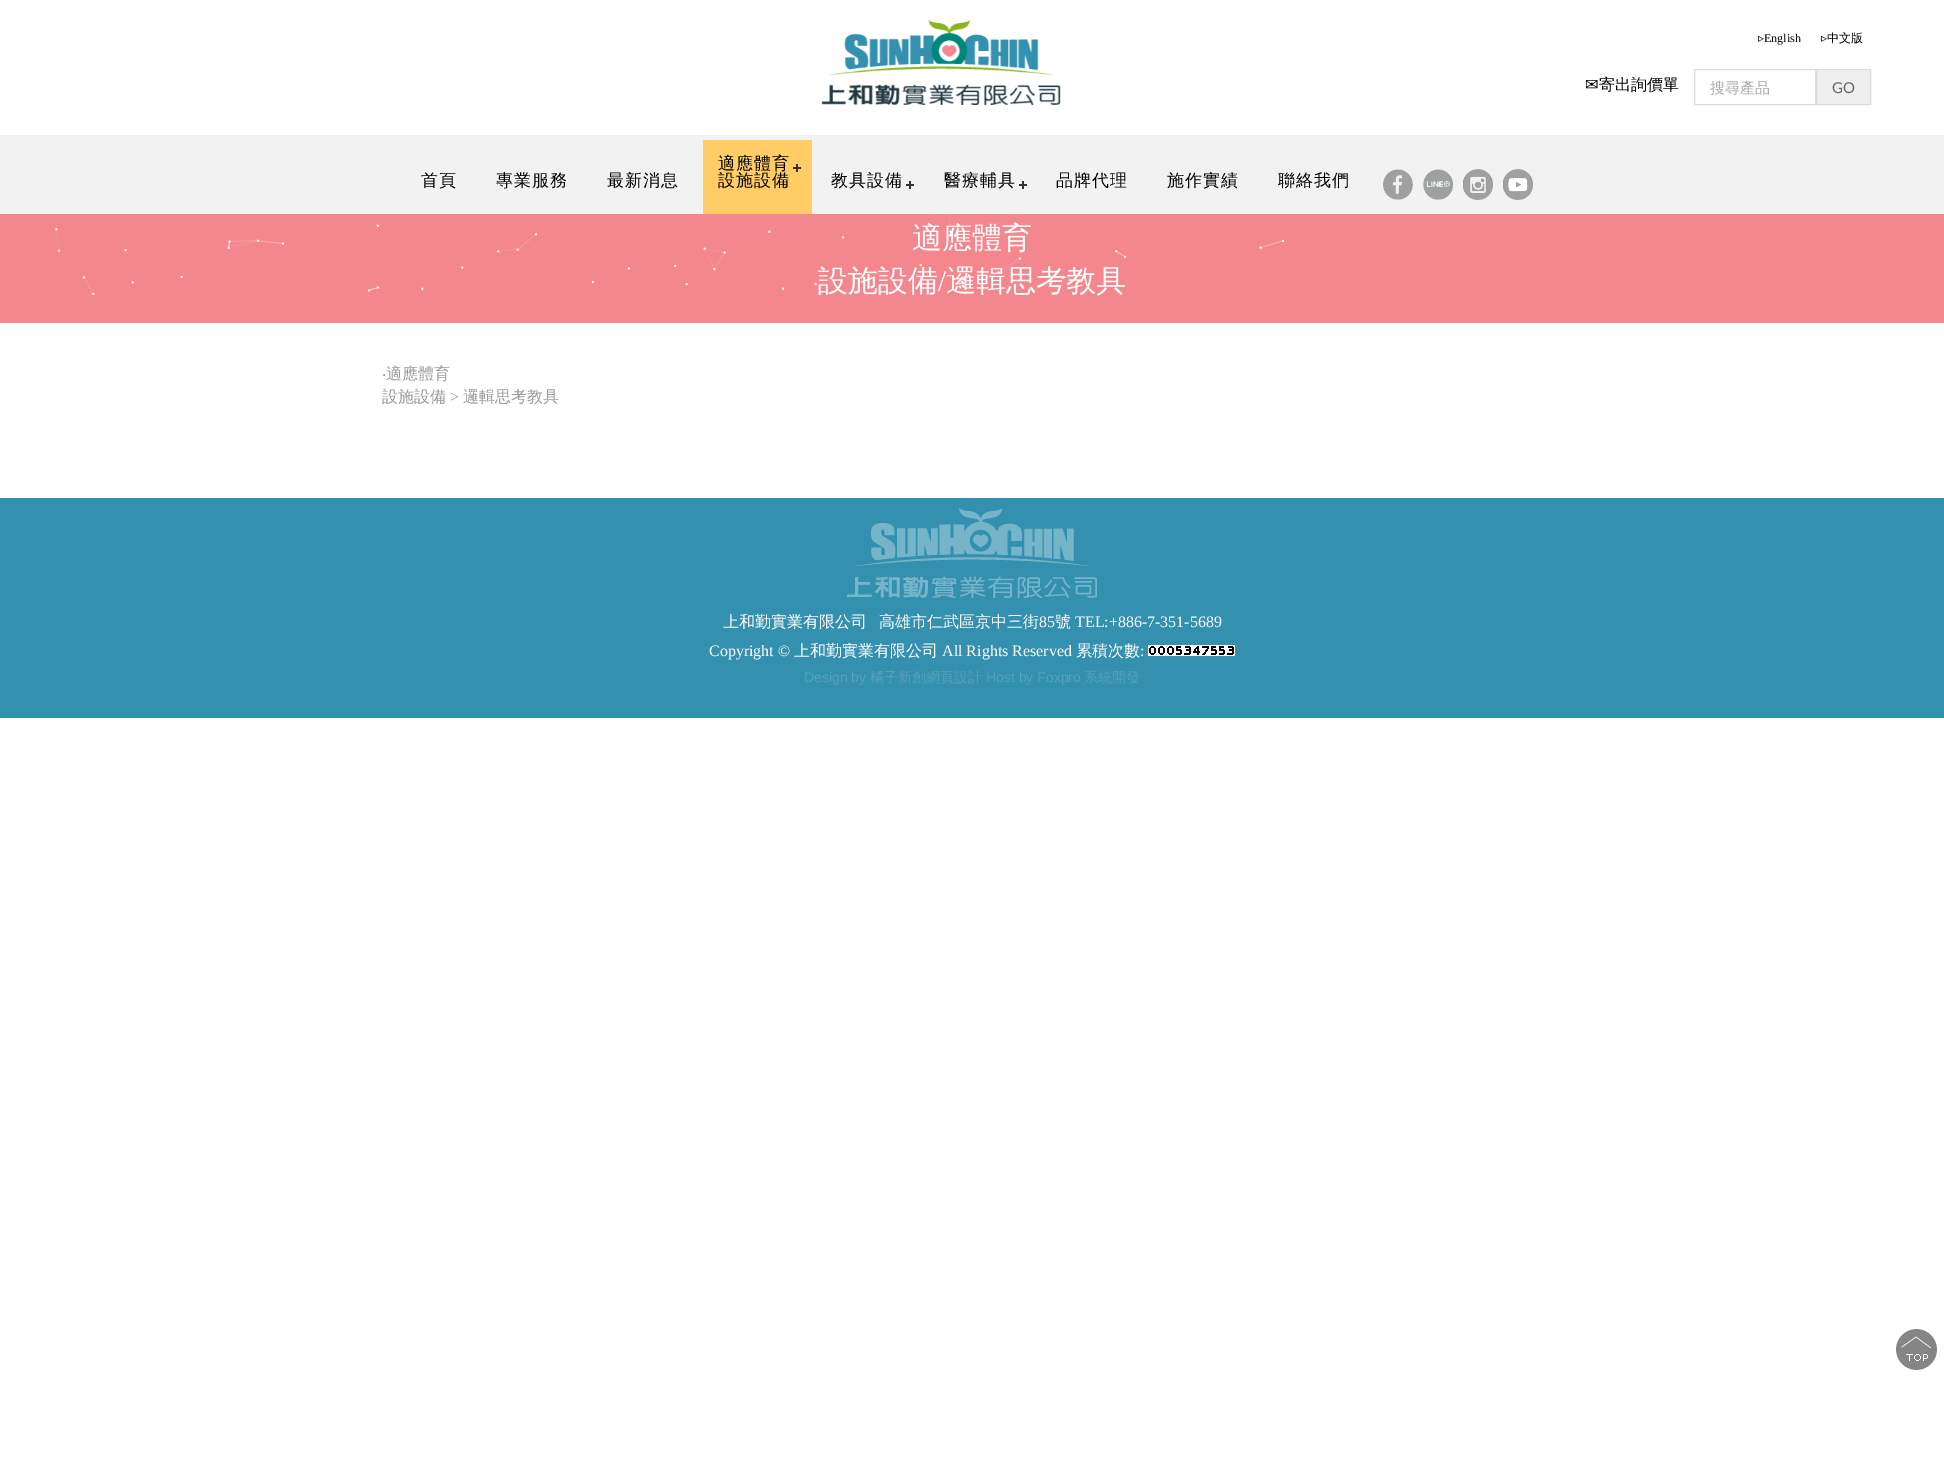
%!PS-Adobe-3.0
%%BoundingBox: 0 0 1944 1475
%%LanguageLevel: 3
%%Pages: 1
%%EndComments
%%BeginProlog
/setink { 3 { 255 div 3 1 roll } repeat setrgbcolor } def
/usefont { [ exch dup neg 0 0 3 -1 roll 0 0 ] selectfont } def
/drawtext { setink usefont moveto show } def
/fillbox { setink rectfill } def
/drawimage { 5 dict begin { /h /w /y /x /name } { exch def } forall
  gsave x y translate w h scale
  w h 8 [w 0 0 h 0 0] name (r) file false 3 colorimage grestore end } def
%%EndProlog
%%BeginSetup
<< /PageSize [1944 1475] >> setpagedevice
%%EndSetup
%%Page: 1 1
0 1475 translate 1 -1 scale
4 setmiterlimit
0 0 1944 1475 255 255 255 fillbox
(assets/img1.rgb) 821 20 240 85 drawimage
(▹) 1758 42 /DejaVuSans-Regular 12 0 0 0 drawtext
(English) 1764 42 /LiberationSerif-Regular 12 0 0 0 drawtext
(▹) 1821 42 /DejaVuSans-Regular 12 0 0 0 drawtext
(中文版) 1827 42 /WenQuanYiZenHei-Medium 12 0 0 0 drawtext
(✉) 1585 90 /DejaVuSans-Regular 16 0 0 0 drawtext
(寄出詢價單) 1599 90 /WenQuanYiZenHei-Medium 16 0 0 0 drawtext
221 221 221 setink
1694.5 69.5 121 35 rectstroke
(搜尋產品) 1710 93 /WenQuanYiZenHei-Medium 15 170 170 170 drawtext
239 239 239 setink
1816.5 69.5 moveto 1870.5 69.5 lineto 1870.5 104.5 lineto 1816.5 104.5 lineto closepath gsave fill grestore
221 221 221 setink
stroke
(GO) 1832 93 /Lato-Regular 15 102 102 102 drawtext
0 135 1944 79 242 242 242 fillbox
/WenQuanYiZenHei-Medium 17 usefont
0 0 0 setink
421 186 moveto 1 0 (首頁) ashow
496 186 moveto 1 0 (專業服務) ashow
607 186 moveto 1 0 (最新消息) ashow
703 140 109 74 255 204 102 fillbox
0 0 0 setink
718 169 moveto 1 0 (適應體育) ashow
796 164 2 8 51 51 51 fillbox
793 167 8 2 51 51 51 fillbox
0 0 0 setink
718 186 moveto 1 0 (設施設備) ashow
831 186 moveto 1 0 (教具設備) ashow
909 181 2 8 51 51 51 fillbox
906 184 8 2 51 51 51 fillbox
0 0 0 setink
944 186 moveto 1 0 (醫療輔具) ashow
1022 181 2 8 51 51 51 fillbox
1019 184 8 2 51 51 51 fillbox
0 0 0 setink
1056 186 moveto 1 0 (品牌代理) ashow
1167 186 moveto 1 0 (施作實績) ashow
1278 186 moveto 1 0 (聯絡我們) ashow
(assets/img2.rgb) 1383 169 30 31 drawimage
(assets/img3.rgb) 1423 169 30 31 drawimage
(assets/img4.rgb) 1463 169 30 31 drawimage
(assets/img5.rgb) 1503 169 30 31 drawimage
0 214 1944 109 244 135 141 fillbox
(適應體育) 912 248 /WenQuanYiZenHei-Medium 30 255 255 255 drawtext
(設施設備) 818 291 /WenQuanYiZenHei-Medium 30 255 255 255 drawtext
(/) 938 291 /LiberationSerif-Regular 30 255 255 255 drawtext
(邏輯思考教具) 946 291 /WenQuanYiZenHei-Medium 30 255 255 255 drawtext
(assets/img6.rgb) 55 214 1229 81 drawimage
(‧) 382 379 /NotoSans-Regular 16 153 153 153 drawtext
(適應體育) 386 379 /WenQuanYiZenHei-Medium 16 153 153 153 drawtext
(設施設備) 382 402 /WenQuanYiZenHei-Medium 16 153 153 153 drawtext
(>) 450 402 /LiberationSerif-Regular 16 153 153 153 drawtext
(邏輯思考教具) 463 402 /WenQuanYiZenHei-Medium 16 153 153 153 drawtext
0 498 1944 220 51 144 174 fillbox
(assets/img7.rgb) 847 508 250 90 drawimage
(上和勤實業有限公司) 723 627 /WenQuanYiZenHei-Medium 16 255 255 255 drawtext
(高雄市仁武區京中三街) 879 627 /WenQuanYiZenHei-Medium 16 255 255 255 drawtext
(85) 1039 627 /LiberationSerif-Regular 16 255 255 255 drawtext
(號) 1055 627 /WenQuanYiZenHei-Medium 16 255 255 255 drawtext
(TEL:+886-7-351-5689) 1075 627 /LiberationSerif-Regular 16 255 255 255 drawtext
(Copyright ©) 709 656 /LiberationSerif-Regular 16 255 255 255 drawtext
(上和勤實業有限公司) 794 656 /WenQuanYiZenHei-Medium 16 255 255 255 drawtext
(All Rights Reserved) 942 656 /LiberationSerif-Regular 16 255 255 255 drawtext
(累積次數) 1076 656 /WenQuanYiZenHei-Medium 16 255 255 255 drawtext
(:) 1140 656 /LiberationSerif-Regular 16 255 255 255 drawtext
(assets/img8.rgb) 1148 645 9 11 drawimage
(assets/img8.rgb) 1157 645 9 11 drawimage
(assets/img8.rgb) 1166 645 9 11 drawimage
(assets/img9.rgb) 1175 645 8 11 drawimage
(assets/img10.rgb) 1183 645 9 11 drawimage
(assets/img11.rgb) 1192 645 9 11 drawimage
(assets/img12.rgb) 1201 645 9 11 drawimage
(assets/img9.rgb) 1210 645 8 11 drawimage
(assets/img9.rgb) 1218 645 8 11 drawimage
(assets/img10.rgb) 1226 645 9 11 drawimage
(Design by) 804 682 /LiberationSans-Regular 14 85 162 187 drawtext
(橘子新創網頁設計) 870 682 /WenQuanYiZenHei-Medium 14 85 162 187 drawtext
(Host by Foxpro) 986 682 /LiberationSans-Regular 14 85 162 187 drawtext
(系統開發) 1084 682 /WenQuanYiZenHei-Medium 14 85 162 187 drawtext
(assets/img13.rgb) 1896 1329 41 41 drawimage
showpage
%%EOF
